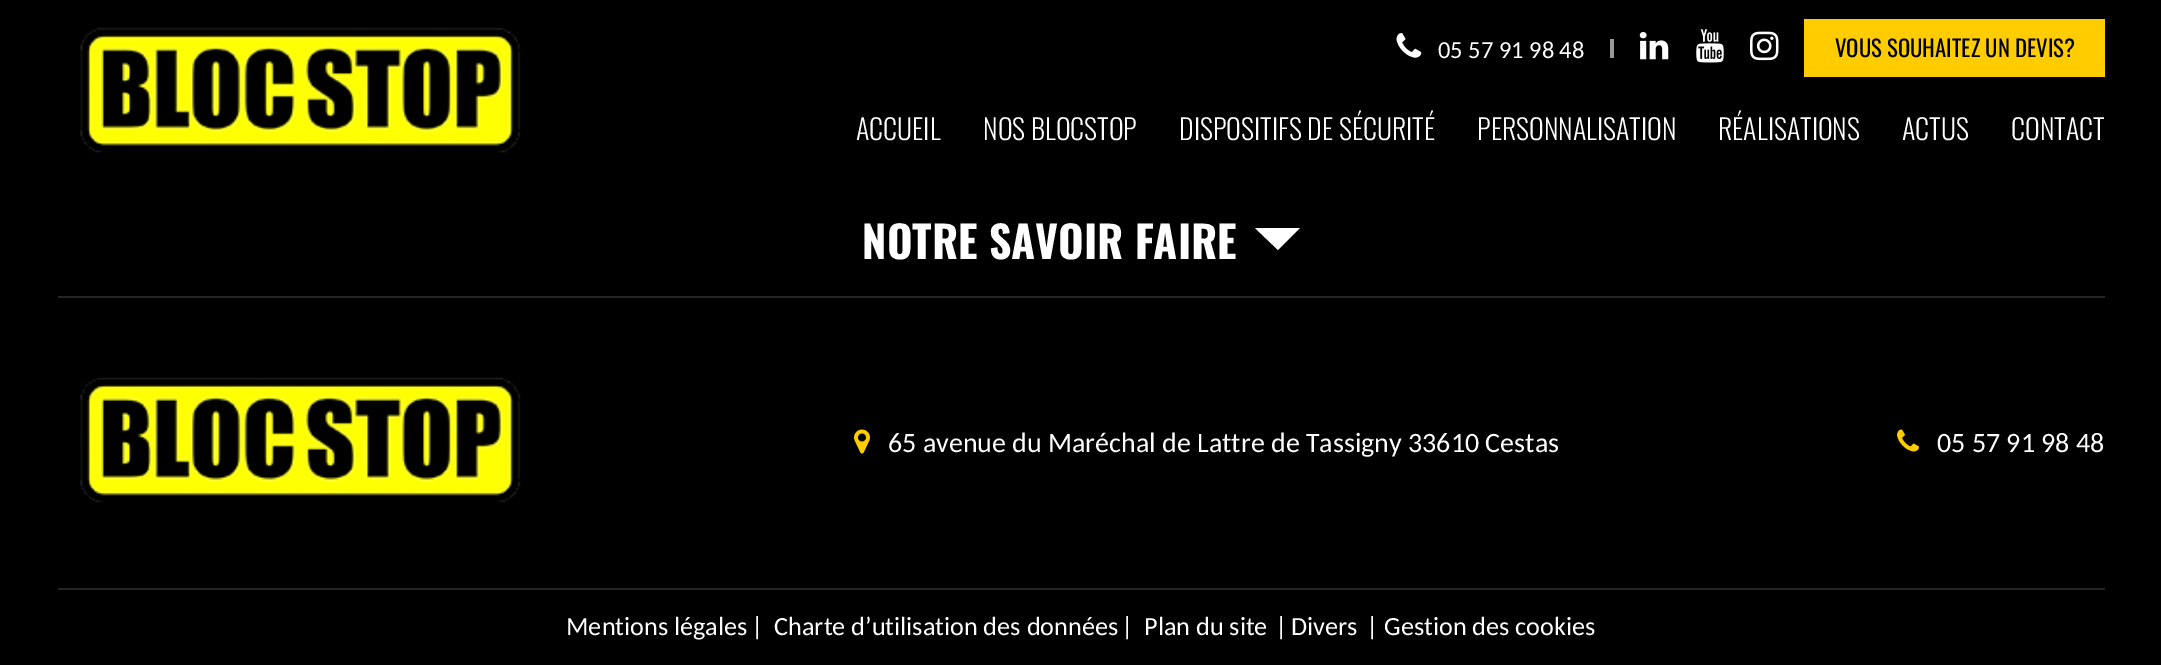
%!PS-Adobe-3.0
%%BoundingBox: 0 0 2161 665
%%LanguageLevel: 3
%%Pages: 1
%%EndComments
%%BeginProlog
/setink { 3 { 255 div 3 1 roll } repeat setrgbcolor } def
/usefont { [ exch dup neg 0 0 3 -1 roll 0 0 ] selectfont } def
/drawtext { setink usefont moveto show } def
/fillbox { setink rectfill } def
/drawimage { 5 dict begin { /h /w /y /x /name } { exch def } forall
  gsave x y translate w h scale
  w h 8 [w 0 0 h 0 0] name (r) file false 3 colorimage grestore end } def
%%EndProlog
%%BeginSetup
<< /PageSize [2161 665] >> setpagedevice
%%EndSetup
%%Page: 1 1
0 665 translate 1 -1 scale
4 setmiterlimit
0 0 2161 665 0 0 0 fillbox
(assets/img1.rgb) 80 27 441 126 drawimage
(assets/img2.rgb) 1396 33 26 25 drawimage
(05 57 91 98 48) 1438 58 /Carlito-Regular 24.5 255 255 255 drawtext
1610 39 4 19 153 153 153 fillbox
(assets/img3.rgb) 1639 32 30 28 drawimage
(assets/img4.rgb) 1696 29 28 34 drawimage
(assets/img5.rgb) 1750 31 29 30 drawimage
1804 19 301 58 255 204 0 fillbox
(VOUS SOUHAITEZ UN DEVIS?) 1835 57 /Oswald-Regular 22.75 0 0 0 drawtext
(ACCUEIL) 856 140 /Oswald-Light 28 255 255 255 drawtext
(NOS BLOCSTOP) 983 140 /Oswald-Light 28 255 255 255 drawtext
(DISPOSITIFS DE SÉCURITÉ) 1179 140 /Oswald-Light 28 255 255 255 drawtext
(PERSONNALISATION) 1477 140 /Oswald-Light 28 255 255 255 drawtext
(RÉALISATIONS) 1718 140 /Oswald-Light 28 255 255 255 drawtext
(ACTUS) 1902 140 /Oswald-Light 28 255 255 255 drawtext
(CONTACT) 2011 140 /Oswald-Light 28 255 255 255 drawtext
(NOTRE SAVOIR FAIRE) 862 259 /Oswald-Bold 43.75 255 255 255 drawtext
1255 228 moveto 1300 228 lineto 1278 250 lineto closepath fill
58 296 2047 2 37 37 37 fillbox
58 588 2047 2 37 37 37 fillbox
(assets/img6.rgb) 80 377 441 126 drawimage
(assets/img7.rgb) 854 429 16 25 drawimage
(65 avenue du Maréchal de Lattre de Tassigny 33610 Cestas) 888 452 /Carlito-Regular 28 255 255 255 drawtext
(assets/img8.rgb) 1897 429 22 23 drawimage
(05 57 91 98 48) 1937 452 /Carlito-Regular 28 255 255 255 drawtext
(Mentions légales) 566 635 /Carlito-Regular 26.25 255 255 255 drawtext
(|) 751 635 /Carlito-Regular 26.25 255 255 255 drawtext
(Charte d’utilisation des données) 774 635 /Carlito-Regular 26.25 255 255 255 drawtext
(|) 1121 635 /Carlito-Regular 26.25 255 255 255 drawtext
(Plan du site) 1144 635 /Carlito-Regular 26.25 255 255 255 drawtext
(|) 1275 635 /Carlito-Regular 26.25 255 255 255 drawtext
(Divers) 1291 635 /Carlito-Regular 26.25 255 255 255 drawtext
(|) 1366 635 /Carlito-Regular 26.25 255 255 255 drawtext
(Gestion des cookies) 1384 635 /Carlito-Regular 26.25 255 255 255 drawtext
showpage
%%EOF
